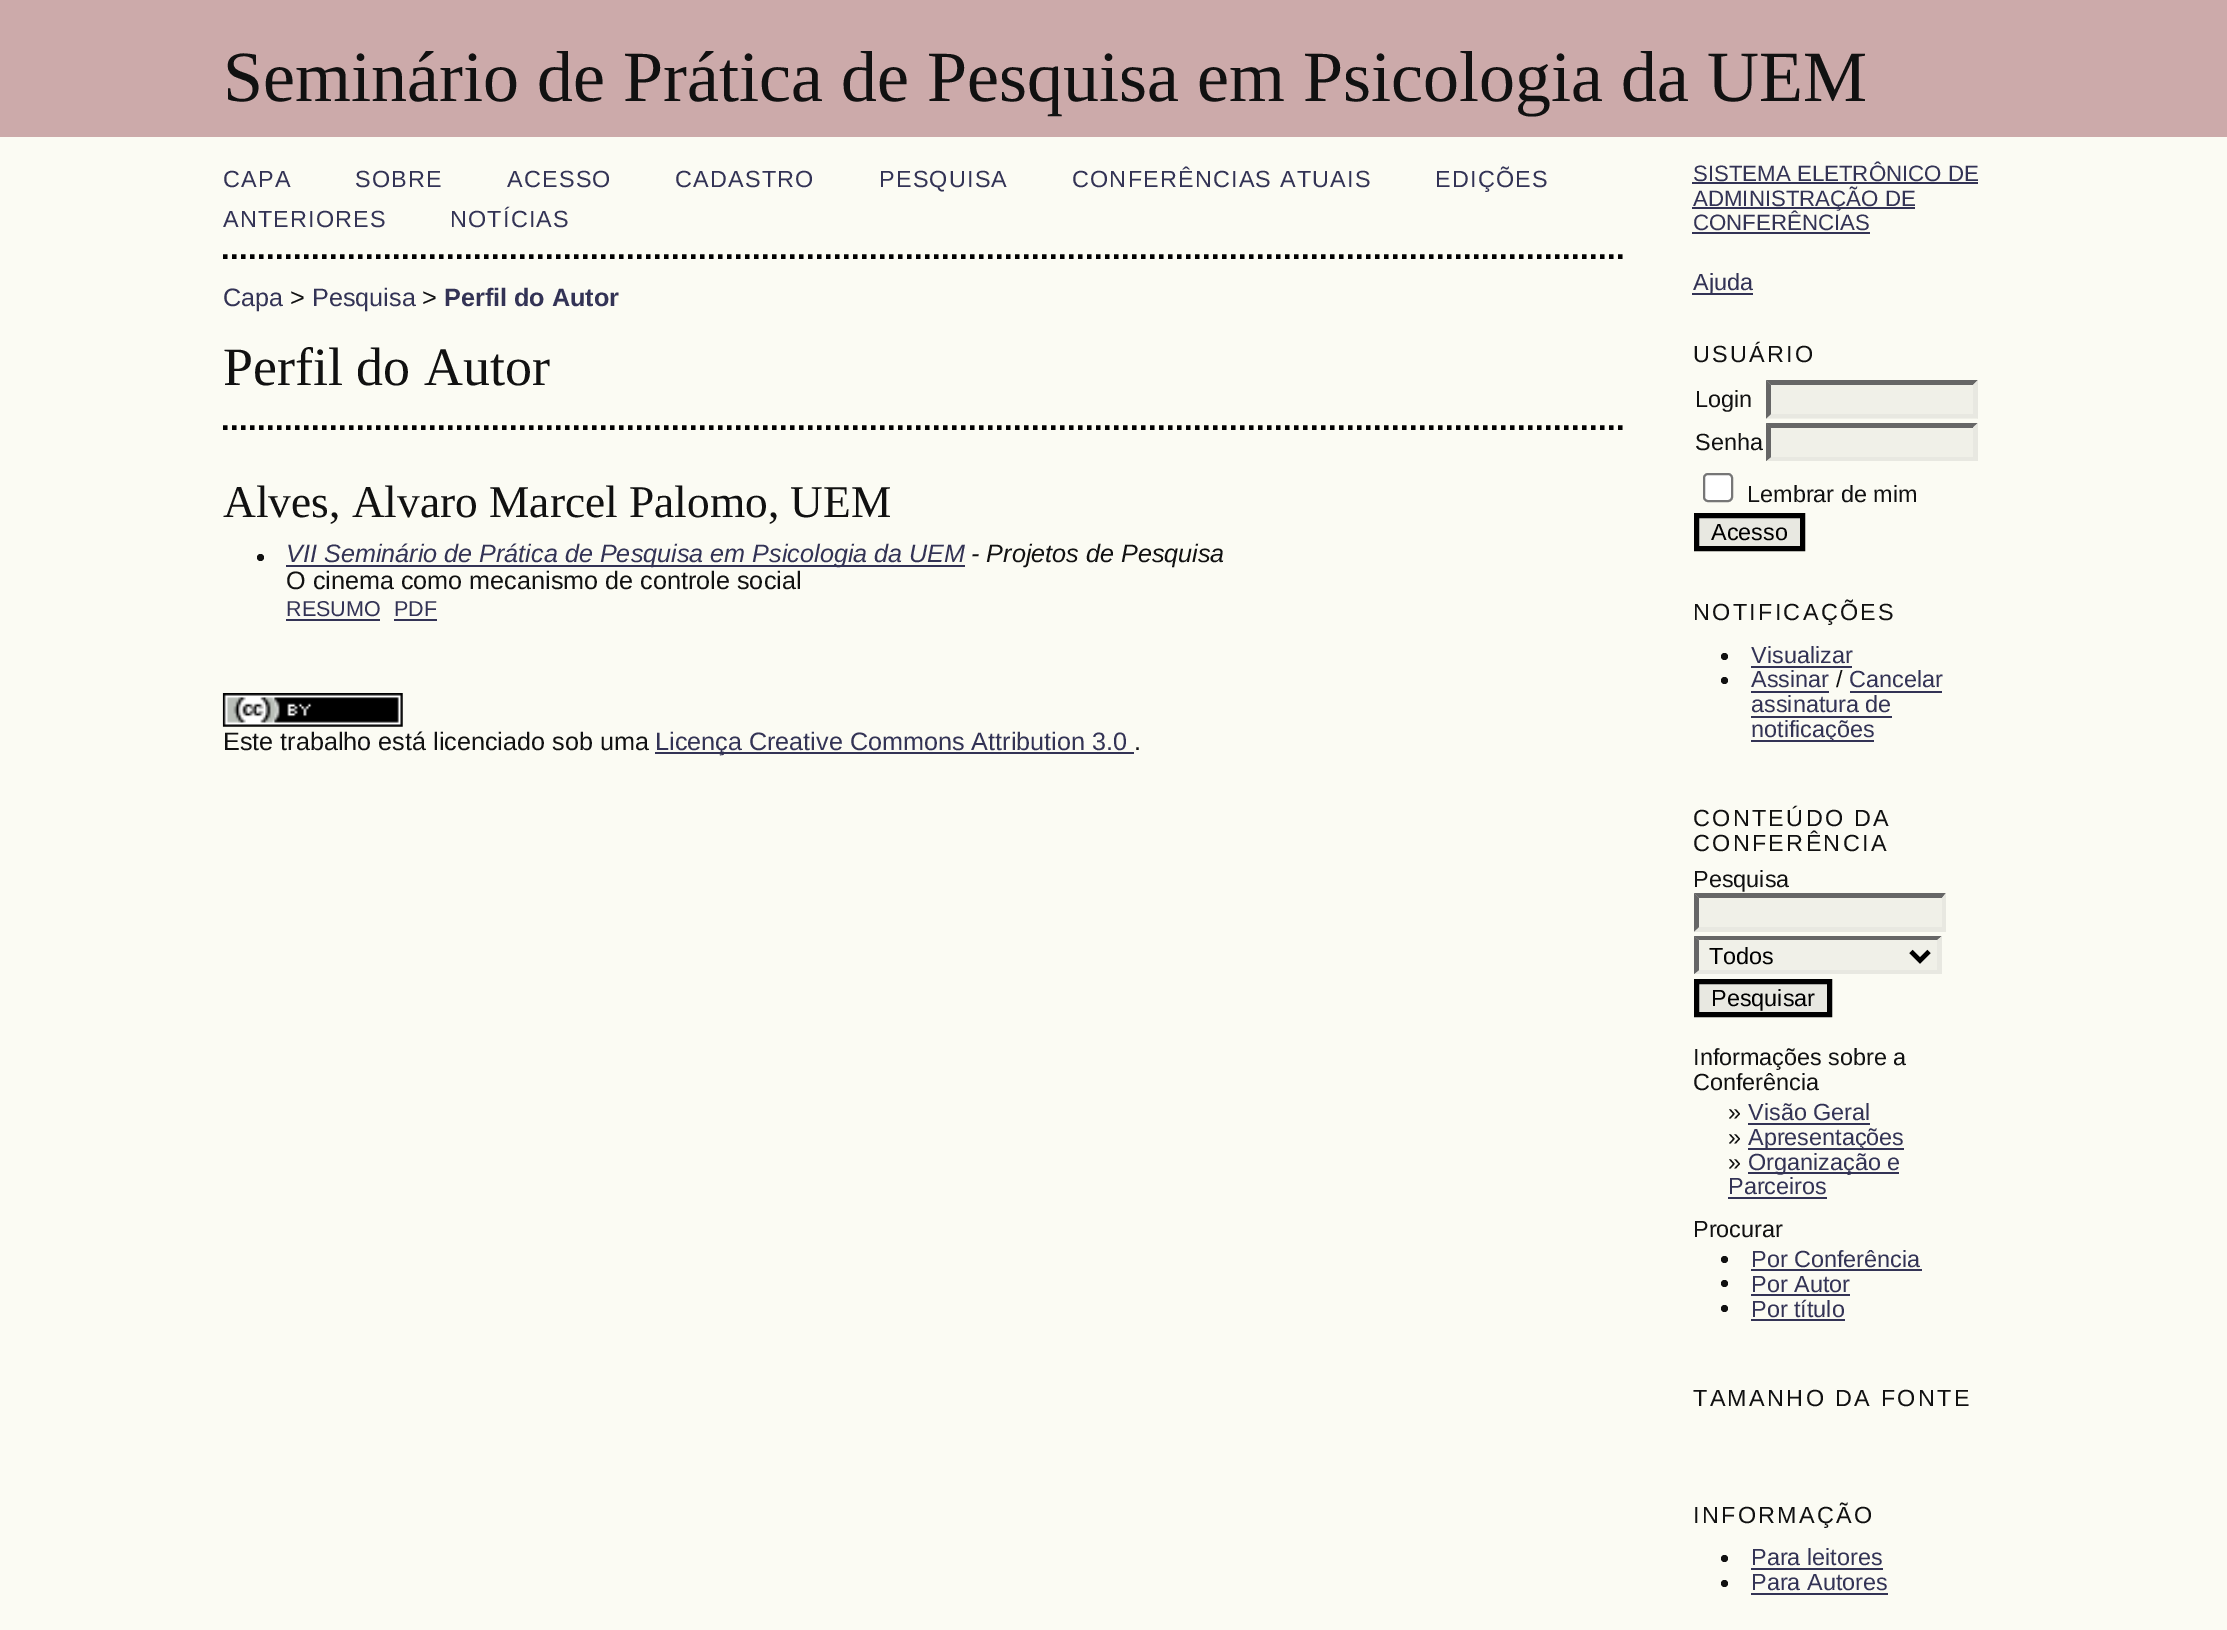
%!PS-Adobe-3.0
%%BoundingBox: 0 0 2227 1630
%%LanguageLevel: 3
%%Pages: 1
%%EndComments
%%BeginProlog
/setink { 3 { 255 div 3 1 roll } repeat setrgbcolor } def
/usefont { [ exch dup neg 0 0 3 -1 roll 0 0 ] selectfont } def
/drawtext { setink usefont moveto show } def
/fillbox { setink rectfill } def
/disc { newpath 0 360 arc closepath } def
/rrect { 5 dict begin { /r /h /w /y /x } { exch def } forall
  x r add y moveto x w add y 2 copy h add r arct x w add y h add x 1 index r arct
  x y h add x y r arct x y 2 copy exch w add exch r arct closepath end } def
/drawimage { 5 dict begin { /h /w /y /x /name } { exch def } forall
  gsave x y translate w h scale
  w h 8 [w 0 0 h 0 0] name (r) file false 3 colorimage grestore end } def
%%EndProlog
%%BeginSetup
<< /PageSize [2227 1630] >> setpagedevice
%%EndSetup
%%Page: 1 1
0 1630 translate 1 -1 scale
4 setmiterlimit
0 0 2227 1630 251 251 243 fillbox
0 0 2227 137 204 170 170 fillbox
(Seminário de Prática de Pesquisa em Psicologia da UEM) 223 101 /LiberationSerif-Regular 72 17 17 17 drawtext
0 0 0 setink
4.5 setlinewidth
[4.5 4.5] 0 setdash
223 256.5 moveto 1627 256.5 lineto stroke
/LiberationSans-Regular 23.4 usefont
51 51 85 setink
223 187 moveto 1.2 0 (CAPA) ashow
355 187 moveto 1.2 0 (SOBRE) ashow
507 187 moveto 1.2 0 (ACESSO) ashow
675 187 moveto 1.2 0 (CADASTRO) ashow
879 187 moveto 1.2 0 (PESQUISA) ashow
1072 187 moveto 1.2 0 (CONFERÊNCIAS ATUAIS) ashow
1435 187 moveto 1.2 0 (EDIÇÕES) ashow
223 227 moveto 1.2 0 (ANTERIORES) ashow
450 227 moveto 1.2 0 (NOTÍCIAS) ashow
(Capa) 223 306 /LiberationSans-Regular 25.2 51 51 85 drawtext
(>) 290 306 /LiberationSans-Regular 25.2 17 17 17 drawtext
(Pesquisa) 312 306 /LiberationSans-Regular 25.2 51 51 85 drawtext
(>) 422 306 /LiberationSans-Regular 25.2 17 17 17 drawtext
(Perfil do Autor) 444 306 /LiberationSans-Bold 25.2 51 51 85 drawtext
(Perfil do Autor) 223 385 /LiberationSerif-Regular 54 17 17 17 drawtext
0 0 0 setink
223 427.5 moveto 1627 427.5 lineto stroke
(Alves, Alvaro Marcel Palomo, UEM) 223 517 /LiberationSerif-Regular 45.4 17 17 17 drawtext
260.5 557.5 3.5 disc fill
286 565 679 2 51 51 85 fillbox
(VII Seminário de Prática de Pesquisa em Psicologia da UEM) 286 562 /LiberationSans-Italic 25.2 51 51 85 drawtext
(- Projetos de Pesquisa) 971 562 /LiberationSans-Italic 25.2 17 17 17 drawtext
(O cinema como mecanismo de controle social) 286 589 /LiberationSans-Regular 25.2 17 17 17 drawtext
(RESUMO) 286 616 /LiberationSans-Regular 21.5 51 51 85 drawtext
286 619 94 2 51 51 85 fillbox
(PDF) 394 616 /LiberationSans-Regular 21.5 51 51 85 drawtext
394 619 43 2 51 51 85 fillbox
(assets/img1.rgb) 222 693 181 34 drawimage
(Este trabalho está licenciado sob uma) 223 750 /LiberationSans-Regular 25.2 17 17 17 drawtext
655 752 479 2 51 51 85 fillbox
(Licença Creative Commons Attribution 3.0) 655 750 /LiberationSans-Regular 25.2 51 51 85 drawtext
(.) 1134 750 /LiberationSans-Regular 25.2 17 17 17 drawtext
(SISTEMA ELETRÔNICO DE) 1693 181 /LiberationSans-Regular 22.25 51 51 85 drawtext
1692 182 286 2 51 51 85 fillbox
1692 207 223 2 51 51 85 fillbox
(ADMINISTRAÇÃO DE) 1693 206 /LiberationSans-Regular 22.25 51 51 85 drawtext
(CONFERÊNCIAS) 1693 230 /LiberationSans-Regular 22.25 51 51 85 drawtext
1692 232 178 2 51 51 85 fillbox
1692 293 61 2 51 51 85 fillbox
(Ajuda) 1693 290 /LiberationSans-Regular 23.4 51 51 85 drawtext
17 17 17 setink
1693 362 moveto 2.3 0 (USUÁRIO) ashow
(Login) 1695 407 /LiberationSans-Regular 23.4 17 17 17 drawtext
1766 380 212 39 240 240 232 fillbox
102 102 102 setink
1766 380 moveto 1978 380 lineto 1973 385 lineto 1771 385 lineto closepath fill
232 232 225 setink
1978 380 moveto 1978 418.5 lineto 1973 414 lineto 1973 385 lineto closepath fill
1978 418 moveto 1766 418 lineto 1771 414 lineto 1973 414 lineto closepath fill
102 102 102 setink
1766 418.5 moveto 1766 380 lineto 1771 385 lineto 1771 414 lineto closepath fill
(Senha) 1695 450 /LiberationSans-Regular 23.4 17 17 17 drawtext
1766 423 212 38 240 240 232 fillbox
102 102 102 setink
1766 423 moveto 1978 423 lineto 1973 428 lineto 1771 428 lineto closepath fill
232 232 225 setink
1978 423 moveto 1978 461 lineto 1973 457 lineto 1973 427.5 lineto closepath fill
1978 461 moveto 1766 461 lineto 1771 457 lineto 1973 457 lineto closepath fill
102 102 102 setink
1766 461 moveto 1766 423 lineto 1771 427.5 lineto 1771 457 lineto closepath fill
255 255 255 setink
1704 474 28 27 4 rrect gsave fill grestore
118 118 118 setink
2 setlinewidth
[] 0 setdash
stroke
(Lembrar de mim) 1747 502 /LiberationSans-Regular 23.4 17 17 17 drawtext
232 232 225 setink
1696.5 515.5 moveto 1802.5 515.5 lineto 1802.5 548.5 lineto 1696.5 548.5 lineto closepath gsave fill grestore
0 0 0 setink
5 setlinewidth
stroke
(Acesso) 1711 540 /LiberationSans-Regular 23.4 0 0 0 drawtext
17 17 17 setink
1693 620 moveto 2.3 0 (NOTIFICAÇÕES) ashow
1724.5 656.5 3.5 disc fill
(Visualizar) 1751 663 /LiberationSans-Regular 23.4 51 51 85 drawtext
1751 666 101 2 51 51 85 fillbox
17 17 17 setink
1724.5 680.5 3.5 disc fill
(Assinar) 1751 687 /LiberationSans-Regular 23.4 51 51 85 drawtext
1751 691 78 2 51 51 85 fillbox
(/) 1836 687 /LiberationSans-Regular 23.4 17 17 17 drawtext
(Cancelar) 1849 687 /LiberationSans-Regular 23.4 51 51 85 drawtext
(assinatura de) 1751 712 /LiberationSans-Regular 23.4 51 51 85 drawtext
1850 691 92 2 51 51 85 fillbox
1751 716 141 2 51 51 85 fillbox
1751 740 123 2 51 51 85 fillbox
(notificações) 1751 737 /LiberationSans-Regular 23.4 51 51 85 drawtext
17 17 17 setink
1693 826 moveto 2.3 0 (CONTEÚDO DA) ashow
1693 851 moveto 2.3 0 (CONFERÊNCIA) ashow
(Pesquisa) 1693 887 /LiberationSans-Regular 23.4 17 17 17 drawtext
1694 893 252 39 240 240 232 fillbox
102 102 102 setink
1694 893 moveto 1946 893 lineto 1942 898 lineto 1699 898 lineto closepath fill
232 232 225 setink
1946 893 moveto 1946 931.5 lineto 1942 927 lineto 1942 898 lineto closepath fill
1946 932 moveto 1694 932 lineto 1699 927 lineto 1942 927 lineto closepath fill
102 102 102 setink
1694 931.5 moveto 1694 893 lineto 1699 898 lineto 1699 927 lineto closepath fill
1694 936 248 38 240 240 232 fillbox
102 102 102 setink
1694 936 moveto 1942 936 lineto 1937 940 lineto 1699 940 lineto closepath fill
232 232 225 setink
1942 936 moveto 1942 974 lineto 1937 970 lineto 1937 940.5 lineto closepath fill
1942 974 moveto 1694 974 lineto 1699 970 lineto 1937 970 lineto closepath fill
102 102 102 setink
1694 974 moveto 1694 936 lineto 1699 940.5 lineto 1699 970 lineto closepath fill
0 0 0 setink
4.5 setlinewidth
1911 951.5 moveto 1920 960.5 lineto 1929 951.5 lineto stroke
(Todos) 1709 964 /LiberationSans-Regular 23.4 0 0 0 drawtext
232 232 225 setink
1696.5 981.5 moveto 1829.5 981.5 lineto 1829.5 1014.5 lineto 1696.5 1014.5 lineto closepath gsave fill grestore
0 0 0 setink
5 setlinewidth
stroke
(Pesquisar) 1711 1006 /LiberationSans-Regular 23.4 0 0 0 drawtext
(Informações sobre a) 1693 1065 /LiberationSans-Regular 23.4 17 17 17 drawtext
(Conferência) 1693 1090 /LiberationSans-Regular 23.4 17 17 17 drawtext
(») 1728 1120 /LiberationSans-Regular 23.4 17 17 17 drawtext
(Visão Geral) 1748 1120 /LiberationSans-Regular 23.4 51 51 85 drawtext
1748 1123 122 2 51 51 85 fillbox
(») 1728 1145 /LiberationSans-Regular 23.4 17 17 17 drawtext
1748 1148 156 2 51 51 85 fillbox
(Apresentações) 1748 1145 /LiberationSans-Regular 23.4 51 51 85 drawtext
(») 1728 1170 /LiberationSans-Regular 23.4 17 17 17 drawtext
1748 1172 151 2 51 51 85 fillbox
(Organização e) 1748 1170 /LiberationSans-Regular 23.4 51 51 85 drawtext
(Parceiros) 1728 1194 /LiberationSans-Regular 23.4 51 51 85 drawtext
1728 1197 99 2 51 51 85 fillbox
(Procurar) 1693 1237 /LiberationSans-Regular 23.4 17 17 17 drawtext
1724.5 1259.5 3.5 disc fill
(Por Conferência) 1751 1267 /LiberationSans-Regular 23.4 51 51 85 drawtext
1751 1269 171 2 51 51 85 fillbox
17 17 17 setink
1724.5 1283.5 3.5 disc fill
(Por Autor) 1751 1292 /LiberationSans-Regular 23.4 51 51 85 drawtext
1751 1294 99 2 51 51 85 fillbox
17 17 17 setink
1724.5 1308.5 3.5 disc fill
(Por título) 1751 1317 /LiberationSans-Regular 23.4 51 51 85 drawtext
1751 1319 94 2 51 51 85 fillbox
17 17 17 setink
1693 1406 moveto 2.3 0 (TAMANHO DA FONTE) ashow
1693 1523 moveto 2.3 0 (INFORMAÇÃO) ashow
1724.5 1558.5 3.5 disc fill
(Para leitores) 1751 1565 /LiberationSans-Regular 23.4 51 51 85 drawtext
1751 1568 132 2 51 51 85 fillbox
17 17 17 setink
1724.5 1583.5 3.5 disc fill
(Para Autores) 1751 1590 /LiberationSans-Regular 23.4 51 51 85 drawtext
1751 1593 137 2 51 51 85 fillbox
showpage
%%EOF
